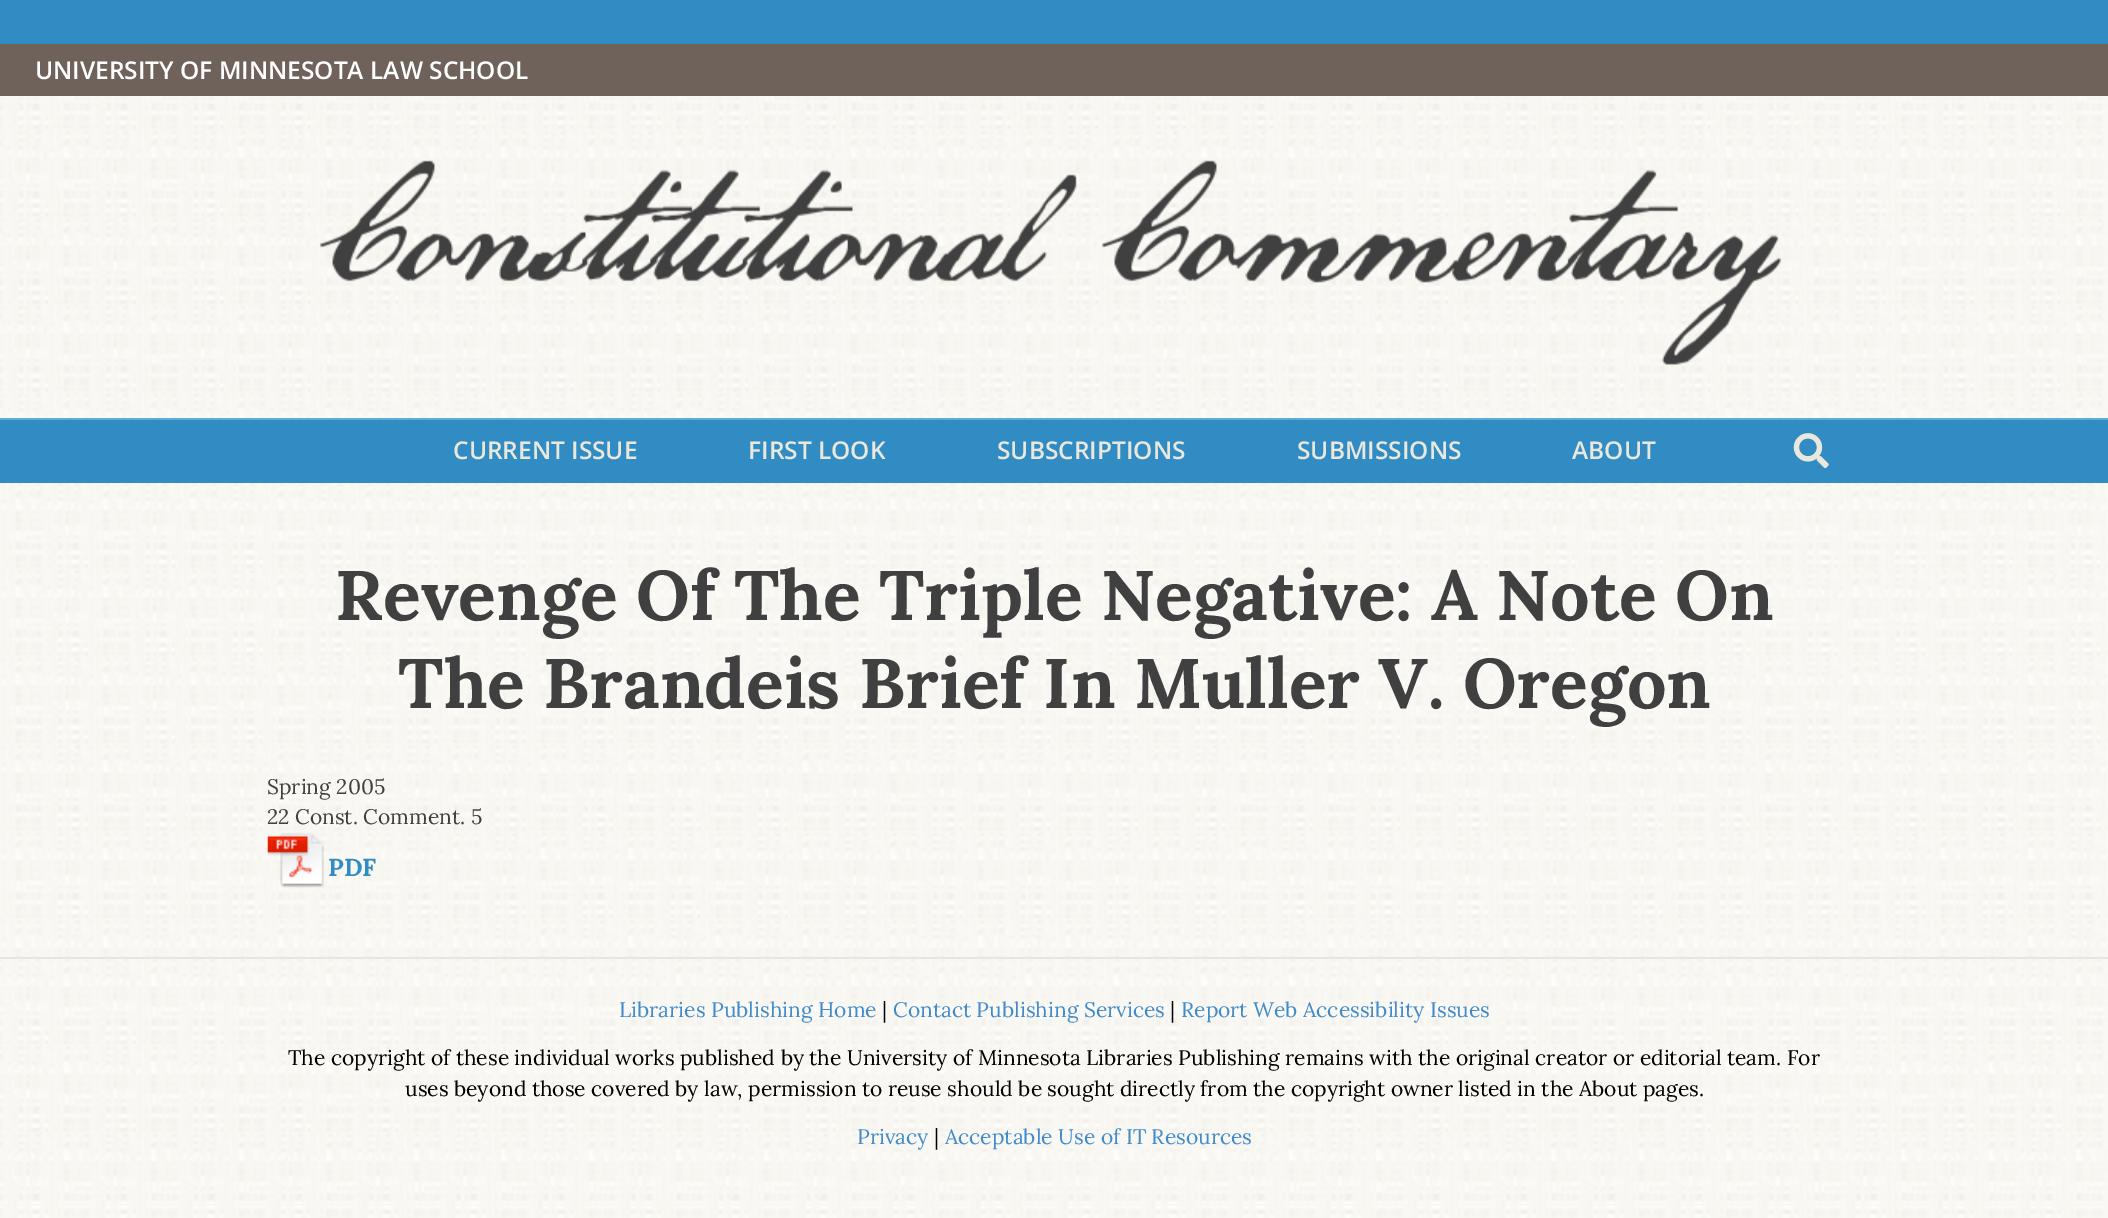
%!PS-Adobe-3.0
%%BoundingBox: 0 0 2108 1218
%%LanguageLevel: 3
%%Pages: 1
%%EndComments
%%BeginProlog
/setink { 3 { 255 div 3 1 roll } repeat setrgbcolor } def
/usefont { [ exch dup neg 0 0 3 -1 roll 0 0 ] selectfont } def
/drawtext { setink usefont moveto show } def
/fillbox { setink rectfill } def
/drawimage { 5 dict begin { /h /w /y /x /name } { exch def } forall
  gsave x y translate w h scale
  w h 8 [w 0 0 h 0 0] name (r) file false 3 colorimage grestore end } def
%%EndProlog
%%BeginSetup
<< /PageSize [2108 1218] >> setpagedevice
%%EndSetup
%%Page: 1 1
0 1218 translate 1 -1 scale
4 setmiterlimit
0 0 2108 1218 255 255 255 fillbox
(assets/img1.rgb) 0 1204 2108 14 drawimage
0 0 2108 44 49 140 196 fillbox
(assets/img2.rgb) 0 96 2108 322 drawimage
0 44 2108 52 111 98 90 fillbox
(UNIVERSITY OF MINNESOTA LAW SCHOOL) 35 79 /OpenSans-SemiBold 24.5 255 255 255 drawtext
(assets/img3.rgb) 320 160 1462 205 drawimage
0 420 2108 63 49 140 196 fillbox
0 418 2108 2 96 170 215 fillbox
(CURRENT ISSUE) 453 459 /OpenSans-SemiBold 24.5 234 232 220 drawtext
(FIRST LOOK) 748 459 /OpenSans-SemiBold 24.5 234 232 220 drawtext
(SUBSCRIPTIONS) 997 459 /OpenSans-SemiBold 24.5 234 232 220 drawtext
(SUBMISSIONS) 1297 459 /OpenSans-SemiBold 24.5 234 232 220 drawtext
(ABOUT) 1572 459 /OpenSans-SemiBold 24.5 234 232 220 drawtext
(assets/img4.rgb) 1793 433 36 36 drawimage
(assets/img5.rgb) 0 483 2108 474 drawimage
(Revenge Of The Triple Negative: A Note On) 335 620 /Lora-Bold 70 64 64 64 drawtext
(The Brandeis Brief In Muller V. Oregon) 398 708 /Lora-Bold 70 64 64 64 drawtext
(Spring 2005) 267 794 /Lora-Regular 21 64 64 64 drawtext
(22 Const. Comment. 5) 267 824 /Lora-Regular 21 64 64 64 drawtext
(assets/img6.rgb) 267 832 57 56 drawimage
(PDF) 328 876 /Lora-Bold 24.5 49 140 196 drawtext
(assets/img7.rgb) 0 959 2108 245 drawimage
0 957 2108 2 230 230 230 fillbox
(Libraries Publishing Home) 619 1017 /Lora-Regular 21 66 139 202 drawtext
(|) 882 1017 /Lora-Regular 21 0 0 0 drawtext
(Contact Publishing Services) 893 1017 /Lora-Regular 21 66 139 202 drawtext
(|) 1170 1017 /Lora-Regular 21 0 0 0 drawtext
(Report Web Accessibility Issues) 1181 1017 /Lora-Regular 21 66 139 202 drawtext
(The copyright of these individual works published by the University of Minnesota Libraries Publishing remains with the original creator or editorial team. For) 288 1065 /Lora-Regular 21 0 0 0 drawtext
(uses beyond those covered by law, permission to reuse should be sought directly from the copyright owner listed in the About pages.) 405 1096 /Lora-Regular 21 0 0 0 drawtext
(Privacy) 857 1144 /Lora-Regular 21 66 139 202 drawtext
(|) 934 1144 /Lora-Regular 21 0 0 0 drawtext
(Acceptable Use of IT Resources) 945 1144 /Lora-Regular 21 66 139 202 drawtext
showpage
%%EOF
